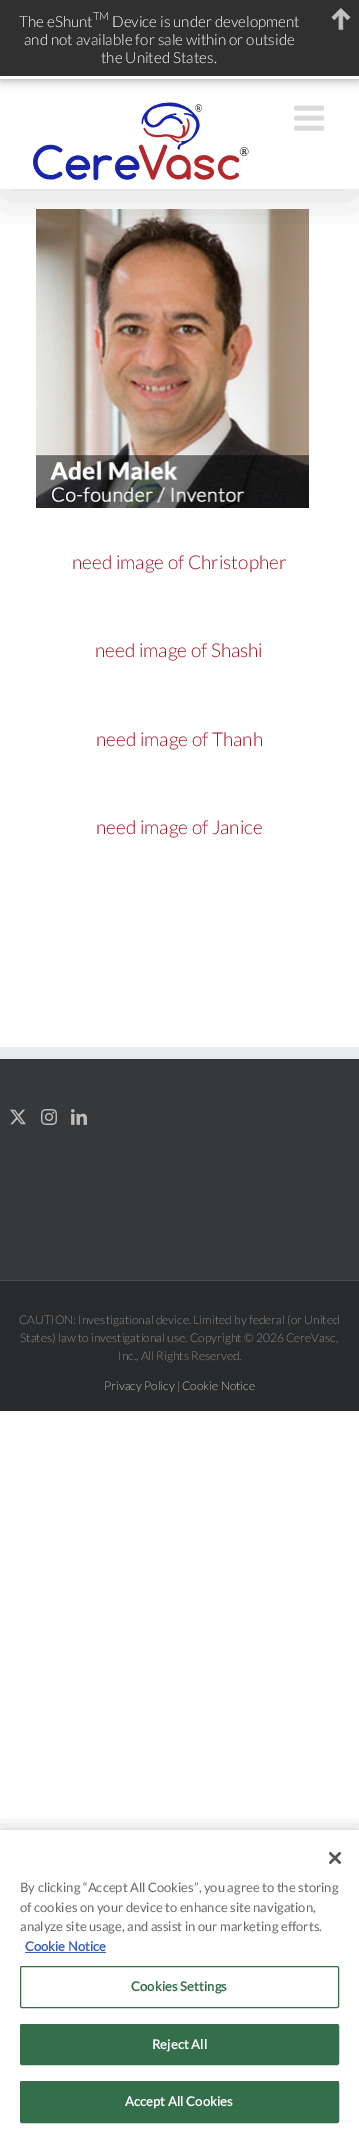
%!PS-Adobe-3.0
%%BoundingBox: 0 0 359 2139
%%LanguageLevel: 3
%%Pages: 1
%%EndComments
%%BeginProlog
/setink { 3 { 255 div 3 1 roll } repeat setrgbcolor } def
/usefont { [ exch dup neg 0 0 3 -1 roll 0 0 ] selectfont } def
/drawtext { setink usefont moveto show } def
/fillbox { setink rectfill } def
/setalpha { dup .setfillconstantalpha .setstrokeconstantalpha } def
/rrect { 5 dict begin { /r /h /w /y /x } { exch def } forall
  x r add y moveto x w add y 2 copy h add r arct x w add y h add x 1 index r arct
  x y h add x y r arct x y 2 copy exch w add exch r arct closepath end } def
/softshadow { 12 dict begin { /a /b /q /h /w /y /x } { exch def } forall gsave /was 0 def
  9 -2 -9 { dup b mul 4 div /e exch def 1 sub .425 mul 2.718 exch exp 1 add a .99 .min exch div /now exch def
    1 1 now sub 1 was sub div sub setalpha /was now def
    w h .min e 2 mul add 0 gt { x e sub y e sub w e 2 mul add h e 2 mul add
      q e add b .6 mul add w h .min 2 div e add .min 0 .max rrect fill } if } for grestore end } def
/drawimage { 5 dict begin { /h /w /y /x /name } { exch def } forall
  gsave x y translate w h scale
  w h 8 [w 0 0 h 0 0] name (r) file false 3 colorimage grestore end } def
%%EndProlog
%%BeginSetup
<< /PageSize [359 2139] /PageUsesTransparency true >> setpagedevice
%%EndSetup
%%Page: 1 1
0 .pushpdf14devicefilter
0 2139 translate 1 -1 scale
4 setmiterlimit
0 0 359 2139 255 255 255 fillbox
0 0 0 setink
0 0 359 79 0 5.5 0.4 softshadow
(assets/img4.rgb) 36 209 273 299 drawimage
gsave
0 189 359 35 rectclip
2 91 355 106 0 25 0.14 softshadow
grestore
0 0 359 76 48 48 48 fillbox
0 76 359 3 255 255 255 fillbox
(The eShunt) 19 27 /Lato-Light 15.25 255 255 255 drawtext
(TM) 93 20 /Lato-Light 11 255 255 255 drawtext
(Device is under development) 112 27 /Lato-Light 15.25 255 255 255 drawtext
(and not available for sale within or outside) 24 45 /Lato-Light 15.25 255 255 255 drawtext
(the United States.) 101 63 /Lato-Light 15.25 255 255 255 drawtext
(assets/img1.rgb) 331 7 20 24 drawimage
(assets/img2.rgb) 33 102 216 78 drawimage
(assets/img3.rgb) 294 105 30 26 drawimage
(need image of Christopher) 72 569 /Lato-Light 19 163 19 34 drawtext
(need image of Shashi) 95 657 /Lato-Light 19 163 19 34 drawtext
(need image of Thanh) 96 746 /Lato-Light 19 163 19 34 drawtext
(need image of Janice) 96 834 /Lato-Light 19 163 19 34 drawtext
0 1059 359 221 54 56 57 fillbox
0 1047 359 12 233 234 238 fillbox
(assets/img5.rgb) 10 1109 16 16 drawimage
(assets/img6.rgb) 41 1109 16 16 drawimage
(assets/img7.rgb) 71 1109 16 16 drawimage
0 1281 359 130 40 42 43 fillbox
0 1280 359 1 75 76 77 fillbox
(CAUTION: Investigational device. Limited by federal \(or United) 19 1324 /Lato-Light 12 140 137 137 drawtext
(States\) law to investigational use. Copyright © 2026 CereVasc,) 20 1342 /Lato-Light 12 140 137 137 drawtext
(Inc., All Rights Reserved.) 118 1360 /Lato-Light 12 140 137 137 drawtext
(Privacy Policy) 104 1390 /Lato-Light 12 191 191 191 drawtext
(|) 177 1390 /Lato-Light 12 140 137 137 drawtext
(Cookie Notice) 182 1390 /Lato-Light 12 191 191 191 drawtext
gsave
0 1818 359 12 rectclip
0 0 0 setink
0 1830 359 309 0 9 0.2 softshadow
grestore
(assets/img8.rgb) 329 1852 12 12 drawimage
(By clicking “Accept All Cookies”, you agree to the storing) 20 1892 /Lato-Regular 13 105 105 105 drawtext
(of cookies on your device to enhance site navigation,) 20 1912 /Lato-Regular 13 105 105 105 drawtext
(analyze site usage, and assist in our marketing efforts.) 20 1931 /Lato-Regular 13 105 105 105 drawtext
(Cookie Notice) 25 1951 /Lato-Bold 13 56 96 190 drawtext
25 1952 81 1 56 96 190 fillbox
52 110 74 setink
20.5 1966.5 318 41 1.5 rrect stroke
131 1991 moveto 0.1 0 (Cookies Settings) ashow
20.5 2024.5 318 40 1.5 rrect gsave fill grestore
stroke
255 255 255 setink
152 2049 moveto 0.1 0 (Reject All) ashow
52 110 74 setink
20.5 2081.5 318 41 1.5 rrect gsave fill grestore
stroke
255 255 255 setink
125 2106 moveto 0.1 0 (Accept All Cookies) ashow
.poppdf14devicefilter showpage
%%EOF
